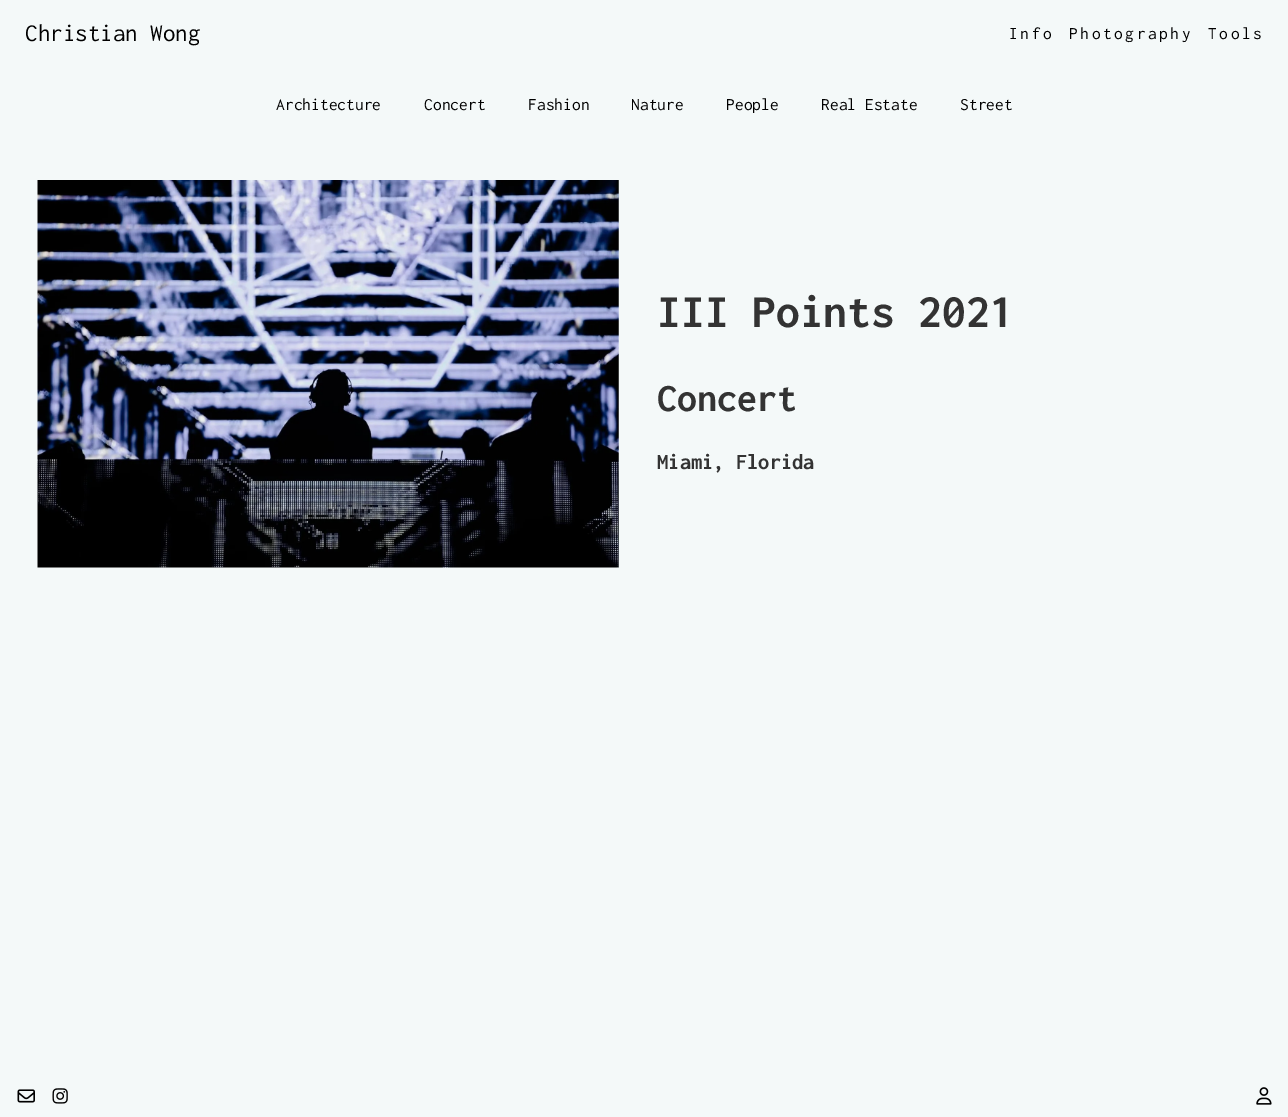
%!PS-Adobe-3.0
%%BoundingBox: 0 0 1288 1117
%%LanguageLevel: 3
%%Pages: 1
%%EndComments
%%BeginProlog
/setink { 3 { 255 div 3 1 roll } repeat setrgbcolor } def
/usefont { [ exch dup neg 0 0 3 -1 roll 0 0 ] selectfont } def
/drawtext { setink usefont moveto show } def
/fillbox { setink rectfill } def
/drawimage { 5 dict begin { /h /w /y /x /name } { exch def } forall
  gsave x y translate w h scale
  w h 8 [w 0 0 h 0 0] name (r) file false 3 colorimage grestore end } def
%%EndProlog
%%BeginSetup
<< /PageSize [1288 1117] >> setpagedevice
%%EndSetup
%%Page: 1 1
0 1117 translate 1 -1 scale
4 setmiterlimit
0 0 1288 1117 244 249 249 fillbox
(Christian Wong) 25 41 /Inconsolata-Regular 25 0 0 0 drawtext
/Inconsolata-Regular 17.5 usefont
1009 39 moveto 2.5 0 (Info) ashow
1069 39 moveto 2.5 0 (Photography) ashow
1208 39 moveto 2.5 0 (Tools) ashow
(Architecture) 276 110 /Inconsolata-Regular 17.5 0 0 0 drawtext
(Concert) 424 110 /Inconsolata-Regular 17.5 0 0 0 drawtext
(Fashion) 528 110 /Inconsolata-Regular 17.5 0 0 0 drawtext
(Nature) 631 110 /Inconsolata-Regular 17.5 0 0 0 drawtext
(People) 726 110 /Inconsolata-Regular 17.5 0 0 0 drawtext
(Real Estate) 821 110 /Inconsolata-Regular 17.5 0 0 0 drawtext
(Street) 960 110 /Inconsolata-Regular 17.5 0 0 0 drawtext
(assets/img1.rgb) 37 180 582 388 drawimage
(III Points 2021) 657 327 /Inconsolata-Bold 47.5 51 51 51 drawtext
(Concert) 657 411 /Inconsolata-Bold 40 51 51 51 drawtext
(Miami, Florida) 657 469 /Inconsolata-Bold 22.5 51 51 51 drawtext
(assets/img2.rgb) 17 1089 18 14 drawimage
(assets/img3.rgb) 52 1088 16 16 drawimage
(assets/img4.rgb) 1256 1087 16 18 drawimage
showpage
%%EOF
